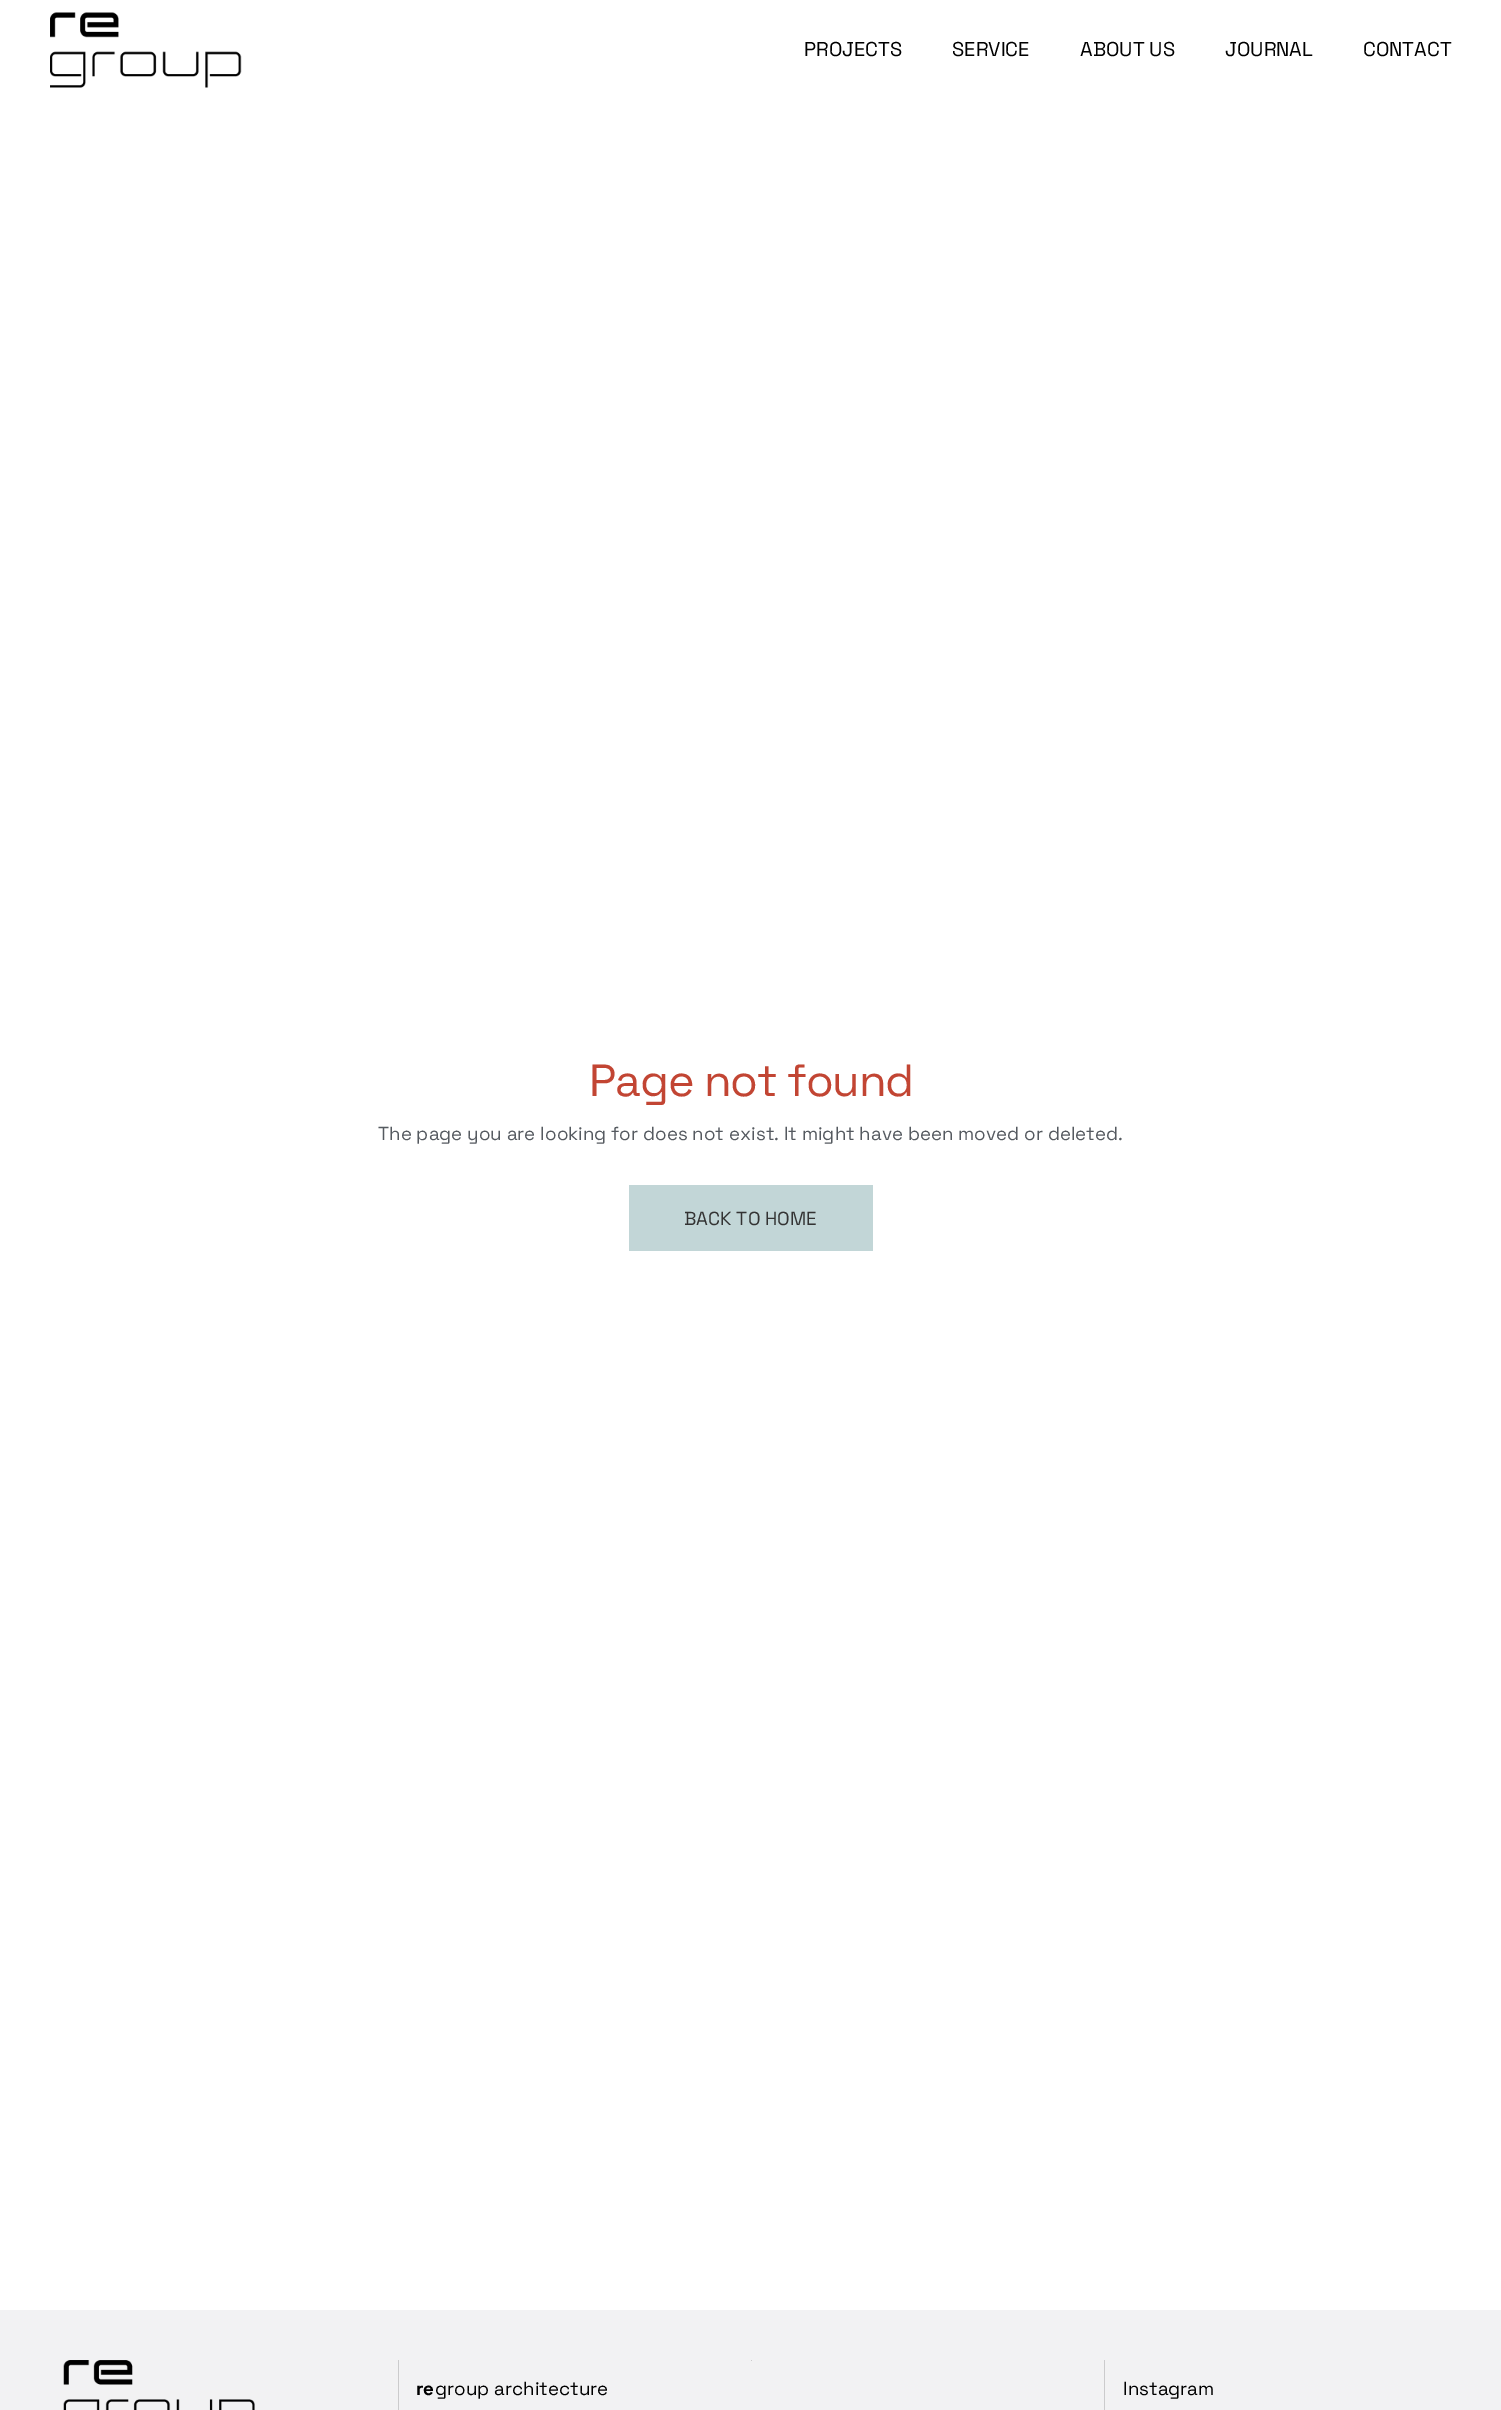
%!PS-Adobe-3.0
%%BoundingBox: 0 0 1501 2410
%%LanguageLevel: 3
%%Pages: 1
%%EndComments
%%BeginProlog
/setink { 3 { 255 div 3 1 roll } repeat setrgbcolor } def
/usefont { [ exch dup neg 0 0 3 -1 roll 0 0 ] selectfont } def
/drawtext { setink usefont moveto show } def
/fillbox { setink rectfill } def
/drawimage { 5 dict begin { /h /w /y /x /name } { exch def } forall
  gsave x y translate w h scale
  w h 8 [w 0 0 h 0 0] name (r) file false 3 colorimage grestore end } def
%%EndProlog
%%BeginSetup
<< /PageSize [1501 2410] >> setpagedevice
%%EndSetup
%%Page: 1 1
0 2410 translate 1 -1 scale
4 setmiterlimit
0 0 1501 2410 255 255 255 fillbox
(assets/img1.rgb) 50 12 192 76 drawimage
(PROJECTS) 804 56 /SpaceGrotesk-Regular 20 0 0 0 drawtext
(SERVICE) 952 56 /SpaceGrotesk-Regular 20 0 0 0 drawtext
(ABOUT US) 1080 56 /SpaceGrotesk-Regular 20 0 0 0 drawtext
(JOURNAL) 1225 56 /SpaceGrotesk-Regular 20 0 0 0 drawtext
(CONTACT) 1363 56 /SpaceGrotesk-Regular 20 0 0 0 drawtext
/SpaceGrotesk-Regular 45 usefont
194 69 51 setink
589 1096 moveto -1.1 0 (Page not found) ashow
(The page you are looking for does not exist. It might have been moved or deleted.) 378 1140 /SpaceGrotesk-Regular 18.75 85 90 96 drawtext
629 1185 244 66 194 214 215 fillbox
(BACK TO HOME) 684 1225 /SpaceGrotesk-Regular 18.75 51 51 51 drawtext
0 2310 1501 100 242 242 243 fillbox
(assets/img2.rgb) 63 2360 192 50 drawimage
751 2360 1 1 203 203 204 fillbox
398 2360 1 50 203 203 204 fillbox
(re) 416 2395 /SpaceGrotesk-Bold 18.75 0 0 0 drawtext
(group architecture) 435 2395 /SpaceGrotesk-Regular 18.75 0 0 0 drawtext
1104 2360 1 50 203 203 204 fillbox
(Instagram) 1123 2395 /SpaceGrotesk-Regular 18.75 0 0 0 drawtext
showpage
%%EOF
